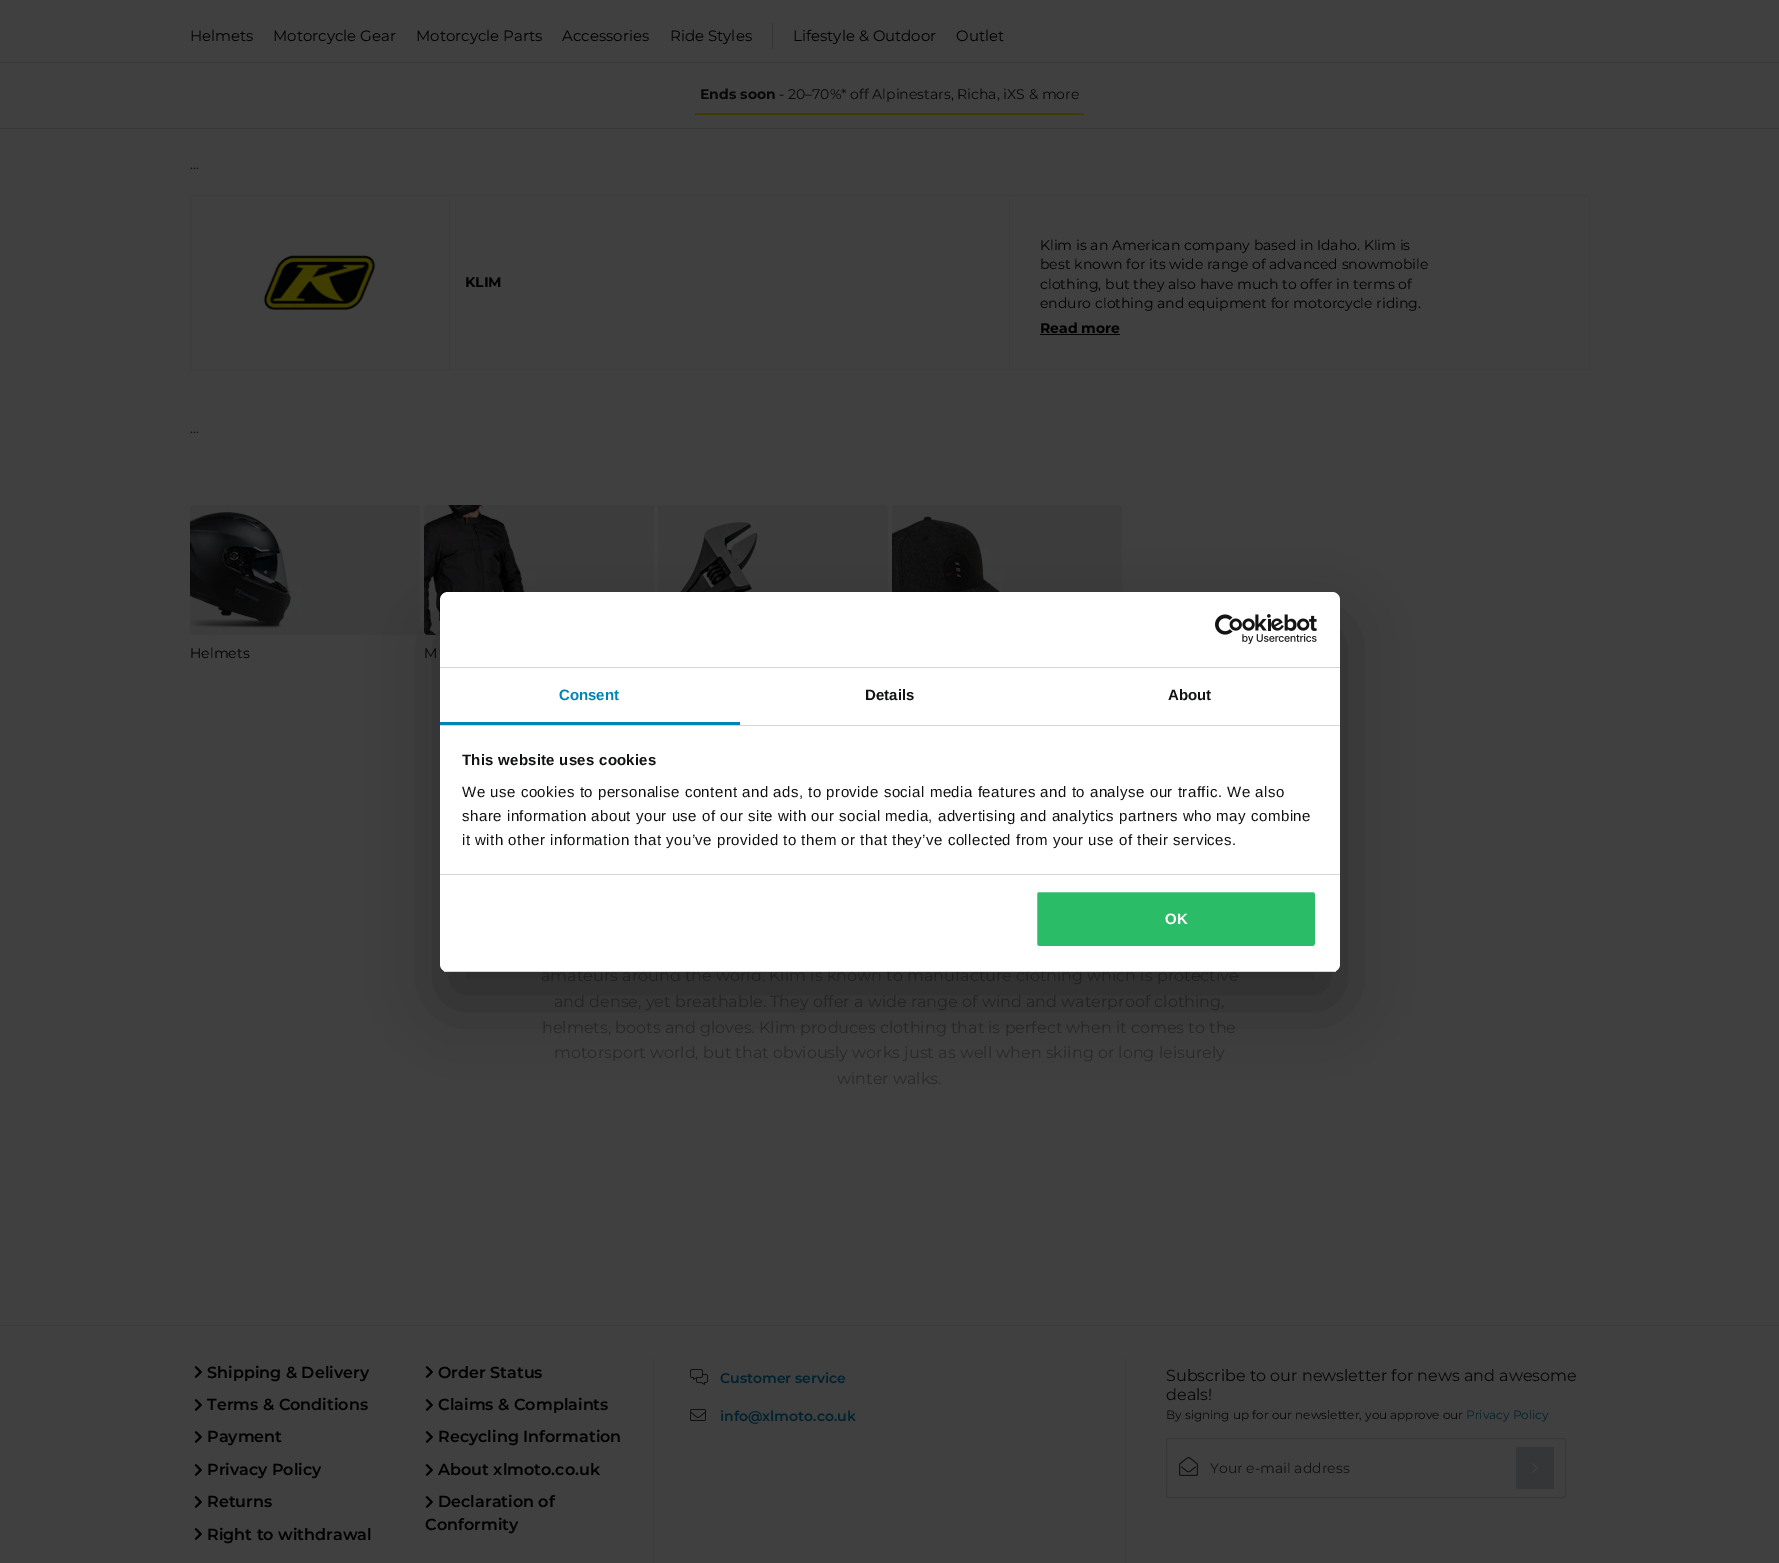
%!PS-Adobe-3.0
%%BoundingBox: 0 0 1779 1563
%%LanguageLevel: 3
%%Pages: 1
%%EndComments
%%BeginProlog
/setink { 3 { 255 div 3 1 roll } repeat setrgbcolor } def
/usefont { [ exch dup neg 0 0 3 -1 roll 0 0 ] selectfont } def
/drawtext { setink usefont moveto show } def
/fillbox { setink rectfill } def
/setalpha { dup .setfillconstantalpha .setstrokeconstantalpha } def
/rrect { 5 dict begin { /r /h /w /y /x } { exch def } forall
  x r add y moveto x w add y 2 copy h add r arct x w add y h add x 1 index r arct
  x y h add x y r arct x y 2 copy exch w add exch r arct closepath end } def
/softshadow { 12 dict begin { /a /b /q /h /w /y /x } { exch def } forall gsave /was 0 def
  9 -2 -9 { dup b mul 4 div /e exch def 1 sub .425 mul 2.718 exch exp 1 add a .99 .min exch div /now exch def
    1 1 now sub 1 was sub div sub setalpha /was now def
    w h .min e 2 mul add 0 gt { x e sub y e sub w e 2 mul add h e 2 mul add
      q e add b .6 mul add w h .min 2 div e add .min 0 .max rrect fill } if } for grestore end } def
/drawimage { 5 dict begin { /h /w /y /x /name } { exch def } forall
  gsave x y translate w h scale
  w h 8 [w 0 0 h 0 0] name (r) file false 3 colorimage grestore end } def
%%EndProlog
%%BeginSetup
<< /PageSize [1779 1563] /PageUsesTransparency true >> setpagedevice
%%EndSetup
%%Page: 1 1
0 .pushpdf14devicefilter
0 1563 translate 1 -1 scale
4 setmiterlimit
0 0 1779 1563 64 64 64 fillbox
0 62 1779 1 57 57 57 fillbox
(Helmets) 190 41 /Montserrat-Regular 15 0 0 0 drawtext
(Motorcycle Gear) 273 41 /Montserrat-Regular 15 0 0 0 drawtext
(Motorcycle Parts) 416 41 /Montserrat-Regular 15 0 0 0 drawtext
(Accessories) 562 41 /Montserrat-Regular 15 0 0 0 drawtext
(Ride Styles) 670 41 /Montserrat-Regular 15 0 0 0 drawtext
772 23 1 26 54 54 54 fillbox
(Lifestyle & Outdoor) 793 41 /Montserrat-Regular 15 0 0 0 drawtext
(Outlet) 956 41 /Montserrat-Regular 15 0 0 0 drawtext
0 128 1779 1 56 56 56 fillbox
(Ends soon) 700 99 /Montserrat-Bold 14 8 8 9 drawtext
(- 20–70%* off Alpinestars, Richa, iXS & more) 779 99 /Montserrat-Regular 14 8 8 9 drawtext
695 113 389 2 63 60 1 fillbox
(...) 190 169 /Montserrat-Regular 14 17 18 19 drawtext
61 61 61 setink
190.5 195.5 259 174 rectstroke
(assets/img1.rgb) 262 255 115 55 drawimage
450 195 1140 1 61 61 61 fillbox
1009 195 1 175 61 61 61 fillbox
450 369 560 1 61 61 61 fillbox
(KLIM) 465 287 /Montserrat-Bold 14 0 0 0 drawtext
1589 195 1 175 61 61 61 fillbox
1010 369 580 1 61 61 61 fillbox
(Klim is an American company based in Idaho. Klim is) 1040 250 /Montserrat-Regular 14 0 0 0 drawtext
(best known for its wide range of advanced snowmobile) 1040 269 /Montserrat-Regular 14 0 0 0 drawtext
(clothing, but they also have much to offer in terms of) 1040 289 /Montserrat-Regular 14 0 0 0 drawtext
(enduro clothing and equipment for motorcycle riding.) 1040 308 /Montserrat-Regular 14 0 0 0 drawtext
(Read more) 1040 333 /Montserrat-Bold 14 0 0 0 drawtext
1040 334 80 1 0 0 0 fillbox
(...) 190 433 /Montserrat-Regular 14 17 18 19 drawtext
(assets/img2.rgb) 658 505 230 87 drawimage
(assets/img3.rgb) 892 505 230 87 drawimage
(assets/img4.rgb) 190 505 230 130 drawimage
(Helmets) 190 658 /Montserrat-Regular 14 0 0 0 drawtext
(assets/img5.rgb) 424 505 230 130 drawimage
(M) 424 658 /Montserrat-Regular 14 0 0 0 drawtext
(amateurs around the world. Klim is known to manufacture clothing which is protective) 541 981 /Montserrat-Regular 16 39 41 42 drawtext
(and dense, yet breathable. They offer a wide range of wind and waterproof clothing,) 554 1007 /Montserrat-Regular 16 39 41 42 drawtext
(helmets, boots and gloves. Klim produces clothing that is perfect when it comes to the) 542 1033 /Montserrat-Regular 16 39 41 42 drawtext
(motorsport world, but that obviously works just as well when skiing or long leisurely) 554 1058 /Montserrat-Regular 16 39 41 42 drawtext
(winter walks.) 837 1084 /Montserrat-Regular 16 39 41 42 drawtext
0 1325 1779 1 60 60 61 fillbox
653 1358 1 205 60 60 61 fillbox
(assets/img6.rgb) 194 1366 8 12 drawimage
(Shipping & Delivery) 207 1378 /Montserrat-SemiBold 16 0 0 0 drawtext
(assets/img6.rgb) 425 1366 8 12 drawimage
(Order Status) 438 1378 /Montserrat-SemiBold 16 0 0 0 drawtext
(assets/img6.rgb) 194 1399 8 12 drawimage
(Terms & Conditions) 207 1410 /Montserrat-SemiBold 16 0 0 0 drawtext
(assets/img6.rgb) 425 1399 8 12 drawimage
(Claims & Complaints) 438 1410 /Montserrat-SemiBold 16 0 0 0 drawtext
(assets/img6.rgb) 194 1431 8 12 drawimage
(Payment) 207 1442 /Montserrat-SemiBold 16 0 0 0 drawtext
(assets/img6.rgb) 425 1431 8 12 drawimage
(Recycling Information) 438 1442 /Montserrat-SemiBold 16 0 0 0 drawtext
(assets/img6.rgb) 194 1464 8 12 drawimage
(Privacy Policy) 207 1475 /Montserrat-SemiBold 16 0 0 0 drawtext
(assets/img6.rgb) 425 1464 8 12 drawimage
(About xlmoto.co.uk) 438 1475 /Montserrat-SemiBold 16 0 0 0 drawtext
(assets/img6.rgb) 194 1496 8 12 drawimage
(Returns) 207 1507 /Montserrat-SemiBold 16 0 0 0 drawtext
(assets/img6.rgb) 425 1496 8 12 drawimage
(Declaration of) 438 1507 /Montserrat-SemiBold 16 0 0 0 drawtext
(Conformity) 425 1530 /Montserrat-SemiBold 16 0 0 0 drawtext
(assets/img6.rgb) 194 1528 8 12 drawimage
(Right to withdrawal) 207 1540 /Montserrat-SemiBold 16 0 0 0 drawtext
1125 1358 1 205 60 60 61 fillbox
(assets/img7.rgb) 690 1369 18 16 drawimage
(Customer service) 720 1383 /Montserrat-SemiBold 14 0 33 45 drawtext
(assets/img8.rgb) 690 1409 16 12 drawimage
(info@xlmoto.co.uk) 720 1421 /Montserrat-SemiBold 14 0 33 45 drawtext
(Subscribe to our newsletter for news and awesome) 1166 1381 /Montserrat-Regular 16 8 8 9 drawtext
(deals!) 1166 1400 /Montserrat-Regular 16 8 8 9 drawtext
(By signing up for our newsletter, you approve our) 1166 1419 /Montserrat-Regular 12 8 8 9 drawtext
(Privacy Policy) 1466 1419 /Montserrat-Regular 12 0 33 45 drawtext
56 56 56 setink
1166.5 1438.5 399 59 2.5 rrect stroke
(assets/img9.rgb) 1179 1457 19 19 drawimage
(Your e-mail address) 1210 1473 /Montserrat-Regular 14 17 18 19 drawtext
53 54 55 setink
1516 1447 38 42 2 rrect fill
(assets/img10.rgb) 1532 1463 6 10 drawimage
0 0 0 setink
440 624 900 380 8 34 0.3 softshadow
255 255 255 setink
440 592 900 380 8 rrect fill
440 667 900 1 214 214 214 fillbox
(assets/img11.rgb) 1215 614 102 30 drawimage
440 725 900 1 214 214 214 fillbox
440 722 300 3 0 132 180 fillbox
(Consent) 559 700 /LiberationSans-Bold 15 0 132 180 drawtext
(Details) 865 700 /LiberationSans-Bold 15 17 18 19 drawtext
(About) 1168 700 /LiberationSans-Bold 15 17 18 19 drawtext
440 874 900 1 214 214 214 fillbox
17 18 19 setink
462 765 moveto 0.25 0 (This website uses cookies) ashow
/LiberationSans-Regular 15 usefont
462 797 moveto 0.5 0 (We use cookies to personalise content and ads, to provide social media features and to analyse our traffic. We also) ashow
462 821 moveto 0.5 0 (share information about your use of our site with our social media, advertising and analytics partners who may combine) ashow
462 845 moveto 0.5 0 (it with other information that you’ve provided to them or that they’ve collected from your use of their services.) ashow
gsave
440 592 900 380 8 rrect clip newpath
440 971 900 1 214 214 214 fillbox
grestore
43 188 104 setink
1036 891 280 56 3 rrect gsave fill grestore
255 255 255 setink
2 setlinewidth
stroke
(OK) 1165 924 /LiberationSans-Bold 15 255 255 255 drawtext
.poppdf14devicefilter showpage
%%EOF
